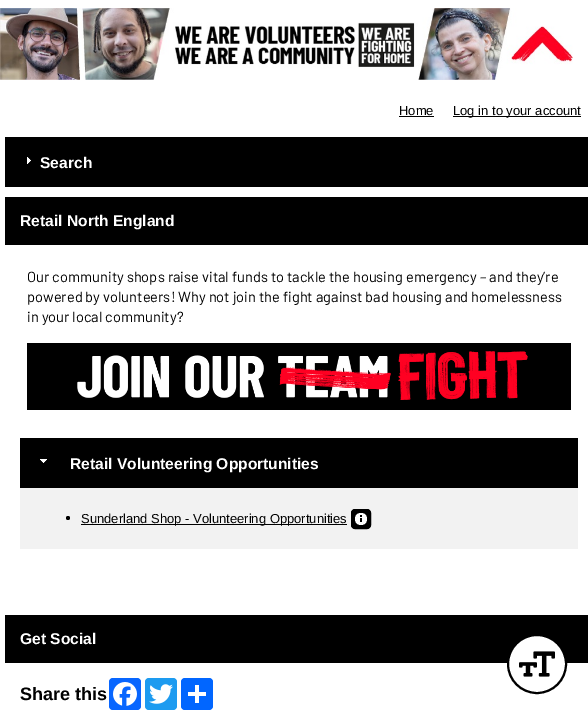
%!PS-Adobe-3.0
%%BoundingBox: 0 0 588 715
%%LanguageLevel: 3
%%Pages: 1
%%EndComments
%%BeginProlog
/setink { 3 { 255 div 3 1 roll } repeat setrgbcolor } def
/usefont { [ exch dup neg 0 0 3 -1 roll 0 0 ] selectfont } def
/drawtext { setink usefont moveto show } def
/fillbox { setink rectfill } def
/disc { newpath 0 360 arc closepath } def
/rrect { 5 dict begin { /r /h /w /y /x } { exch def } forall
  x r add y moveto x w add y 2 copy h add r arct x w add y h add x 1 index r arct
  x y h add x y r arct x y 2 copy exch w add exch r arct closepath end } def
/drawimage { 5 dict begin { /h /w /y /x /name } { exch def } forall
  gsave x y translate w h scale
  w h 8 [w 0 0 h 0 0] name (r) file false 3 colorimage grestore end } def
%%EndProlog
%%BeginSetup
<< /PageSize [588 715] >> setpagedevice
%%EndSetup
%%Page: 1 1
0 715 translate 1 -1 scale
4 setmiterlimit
0 0 588 715 255 255 255 fillbox
(assets/img1.rgb) 0 8 573 72 drawimage
(Home) 399 115 /LiberationSans-Regular 13 0 0 0 drawtext
399 116 35 1 0 0 0 fillbox
453 116 128 1 0 0 0 fillbox
(Log in to your account) 453 115 /LiberationSans-Regular 13 0 0 0 drawtext
5 137 583 50 0 0 0 fillbox
(assets/img2.rgb) 27 157 4 7 drawimage
(Search) 40 168 /LiberationSans-Bold 15.6 255 255 255 drawtext
5 197 583 48 0 0 0 fillbox
(Retail North England) 20 226 /LiberationSans-Bold 15.6 255 255 255 drawtext
(Our community shops raise vital funds to tackle the housing emergency – and they’re) 27 282 /Barlow-Regular 14.65 0 0 0 drawtext
(powered by volunteers! Why not join the fight against bad housing and homelessness) 27 302 /Barlow-Regular 14.65 0 0 0 drawtext
(in your local community?) 27 322 /Barlow-Regular 14.65 0 0 0 drawtext
(assets/img3.rgb) 27 343 544 67 drawimage
20 438 558 50 0 0 0 fillbox
(assets/img4.rgb) 40 459 7 4 drawimage
(Retail Volunteering Opportunities) 70 469 /LiberationSans-Bold 15.6 255 255 255 drawtext
20 488 558 61 242 242 242 fillbox
0 0 0 setink
68 518 2 disc fill
81 524 266 1 0 0 0 fillbox
(Sunderland Shop - Volunteering Opportunities) 81 523 /LiberationSans-Regular 13 0 0 0 drawtext
351.5 509.5 19 19 3.5 rrect gsave fill grestore
stroke
(assets/img5.rgb) 355 513 12 12 drawimage
5 615 583 48 0 0 0 fillbox
(Get Social) 20 644 /LiberationSans-Bold 15.6 255 255 255 drawtext
(Share this) 20 700 /LiberationSans-Bold 18 0 0 0 drawtext
8 102 255 setink
109 678 32 32 4 rrect fill
(assets/img6.rgb) 113 682 24 24 drawimage
29 155 240 setink
145 678 32 32 4 rrect fill
(assets/img7.rgb) 149 684 24 20 drawimage
1 102 255 setink
181 678 32 32 4 rrect fill
195 685 4 18 255 255 255 fillbox
188 692 18 4 255 255 255 fillbox
537 664 29 disc gsave fill grestore
0 0 0 setink
2 setlinewidth
stroke
(assets/img8.rgb) 519 651 36 26 drawimage
showpage
%%EOF
